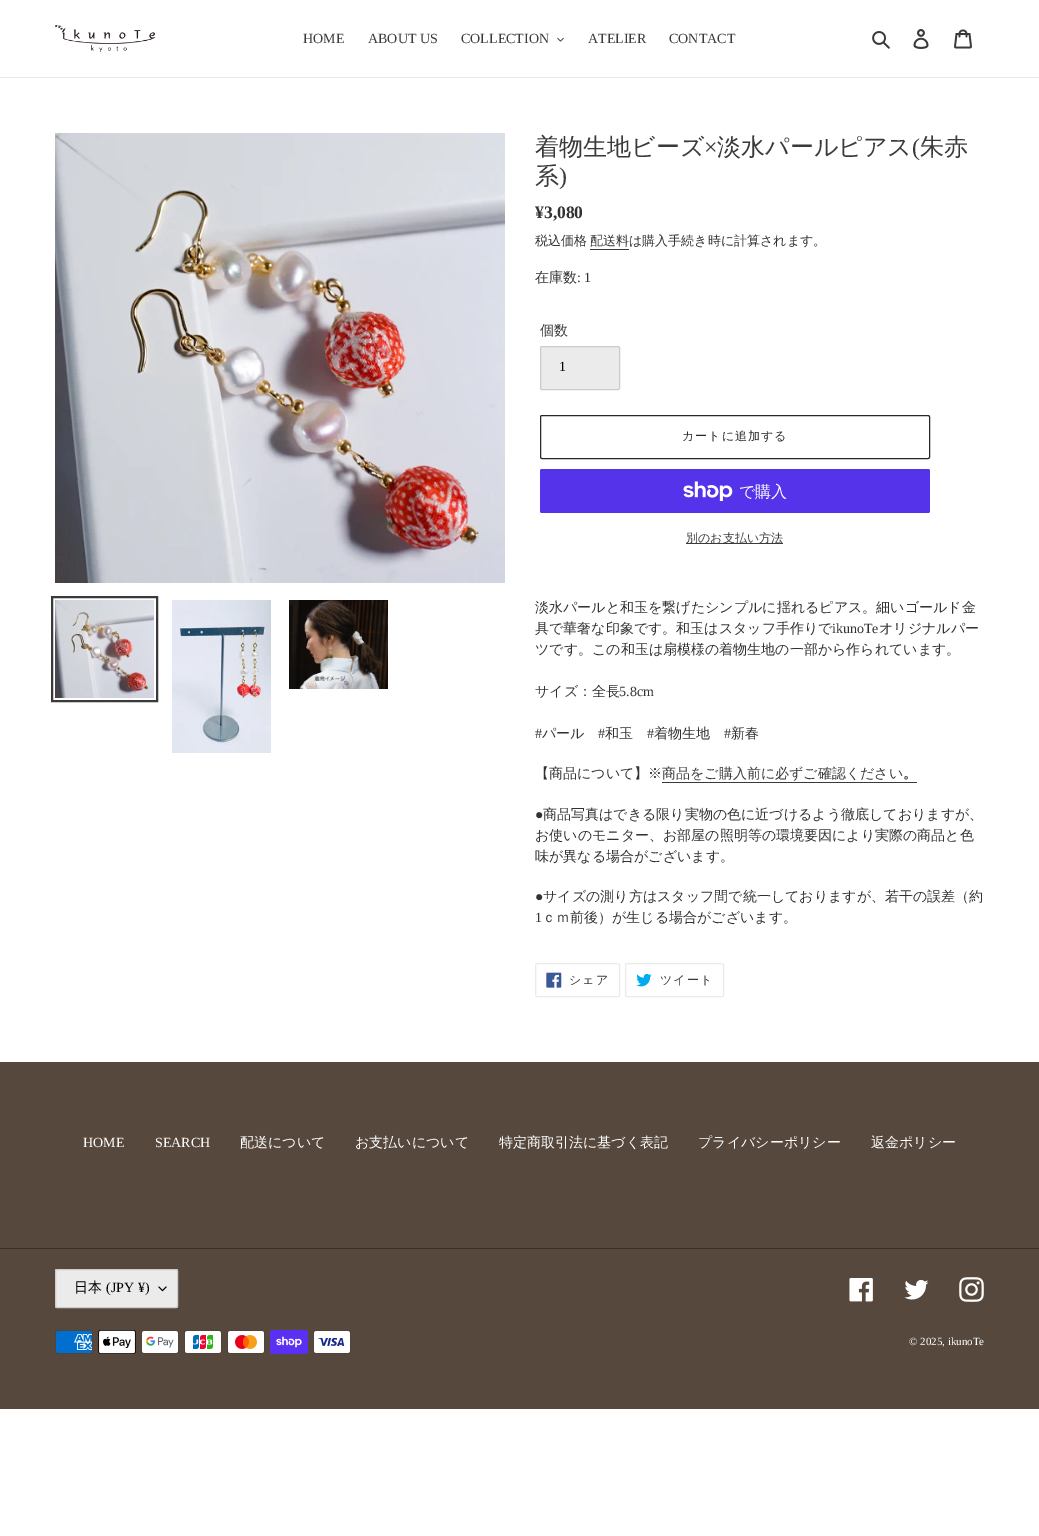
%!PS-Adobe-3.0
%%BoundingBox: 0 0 1039 1536
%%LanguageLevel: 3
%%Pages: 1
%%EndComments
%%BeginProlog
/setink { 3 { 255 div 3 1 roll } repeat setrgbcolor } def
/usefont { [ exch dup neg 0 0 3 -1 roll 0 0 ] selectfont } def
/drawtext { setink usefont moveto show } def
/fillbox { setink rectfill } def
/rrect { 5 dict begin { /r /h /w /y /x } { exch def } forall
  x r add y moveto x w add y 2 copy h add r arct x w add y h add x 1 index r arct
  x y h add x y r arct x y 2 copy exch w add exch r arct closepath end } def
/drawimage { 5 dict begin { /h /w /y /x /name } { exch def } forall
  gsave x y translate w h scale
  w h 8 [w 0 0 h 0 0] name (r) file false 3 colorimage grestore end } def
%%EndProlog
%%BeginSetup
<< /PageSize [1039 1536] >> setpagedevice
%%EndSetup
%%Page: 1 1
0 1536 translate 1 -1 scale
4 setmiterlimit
0 0 1039 1536 255 255 255 fillbox
0 77 1039 1 235 235 235 fillbox
(assets/img1.rgb) 55 25 100 27 drawimage
(HOME) 303 43 /LiberationSerif-Regular 14 58 58 58 drawtext
(ABOUT US) 368 43 /LiberationSerif-Regular 14 58 58 58 drawtext
(COLLECTION) 461 43 /LiberationSerif-Regular 14 58 58 58 drawtext
(assets/img2.rgb) 557 37 7 5 drawimage
(ATELIER) 588 43 /LiberationSerif-Regular 14 58 58 58 drawtext
(CONTACT) 669 43 /LiberationSerif-Regular 14 58 58 58 drawtext
(assets/img3.rgb) 872 31 18 18 drawimage
(assets/img4.rgb) 913 29 16 20 drawimage
(assets/img5.rgb) 954 29 18 20 drawimage
(assets/img6.rgb) 55 133 450 450 drawimage
2 setlinewidth
52 597 105 104 rectstroke
(assets/img7.rgb) 55 600 99 98 drawimage
(assets/img8.rgb) 172 600 99 153 drawimage
(assets/img9.rgb) 289 600 99 89 drawimage
(着物生地ビーズ) 535 155 /WenQuanYiZenHei-Medium 24 58 58 58 drawtext
(×) 704 155 /LiberationSerif-Regular 24 58 58 58 drawtext
(淡水パールピアス) 717 155 /WenQuanYiZenHei-Medium 24 58 58 58 drawtext
(\() 912 155 /LiberationSerif-Regular 24 58 58 58 drawtext
(朱赤) 920 155 /WenQuanYiZenHei-Medium 24 58 58 58 drawtext
(系) 535 184 /WenQuanYiZenHei-Medium 24 58 58 58 drawtext
(\)) 559 184 /LiberationSerif-Regular 24 58 58 58 drawtext
(¥3,080) 535 218 /LiberationSerif-Bold 17.5 51 50 50 drawtext
(税込価格) 535 245 /WenQuanYiZenHei-Medium 13 51 50 50 drawtext
(配送料) 590 245 /WenQuanYiZenHei-Medium 13 58 58 58 drawtext
590 249 39 1 58 58 58 fillbox
(は購入手続き時に計算されます。) 629 245 /WenQuanYiZenHei-Medium 13 51 50 50 drawtext
(在庫数) 535 282 /WenQuanYiZenHei-Medium 14 51 50 50 drawtext
(: 1) 577 282 /LiberationSerif-Regular 14 51 50 50 drawtext
(個数) 540 335 /WenQuanYiZenHei-Medium 14 58 58 58 drawtext
235 235 235 setink
540.5 346.5 79 43 1.5 rrect gsave fill grestore
204 204 204 setink
1 setlinewidth
stroke
(1) 559 371 /LiberationSerif-Regular 14 0 0 0 drawtext
41 41 41 setink
540.5 415.5 389 43 1.5 rrect stroke
/WenQuanYiZenHei-Medium 12 usefont
682 440 moveto 1 0 (カートに追加する) ashow
84 51 235 setink
540 469 390 44 2 rrect fill
(assets/img10.rgb) 683 481 50 20 drawimage
(で購入) 739 497 /WenQuanYiZenHei-Medium 16 255 255 255 drawtext
686 543 97 1 58 58 58 fillbox
(別のお支払い方法) 686 542 /WenQuanYiZenHei-Medium 12 58 58 58 drawtext
(淡水パールと和玉を繋げたシンプルに揺れるピアス。細いゴールド金) 535 612 /WenQuanYiZenHei-Medium 14 51 50 50 drawtext
(具で華奢な印象です。和玉はスタッフ手作りで) 535 633 /WenQuanYiZenHei-Medium 14 51 50 50 drawtext
(ikunoTe) 832 633 /LiberationSerif-Regular 14 51 50 50 drawtext
(オリジナルパー) 879 633 /WenQuanYiZenHei-Medium 14 51 50 50 drawtext
(ツです。この和玉は扇模様の着物生地の一部から作られています。) 535 654 /WenQuanYiZenHei-Medium 14 51 50 50 drawtext
(サイズ：全長) 535 696 /WenQuanYiZenHei-Medium 14 51 50 50 drawtext
(5.8cm) 619 696 /LiberationSerif-Regular 14 51 50 50 drawtext
(#) 535 738 /LiberationSerif-Regular 14 51 50 50 drawtext
(パール) 542 738 /WenQuanYiZenHei-Medium 14 51 50 50 drawtext
(#) 598 738 /LiberationSerif-Regular 14 51 50 50 drawtext
(和玉) 605 738 /WenQuanYiZenHei-Medium 14 51 50 50 drawtext
(#) 647 738 /LiberationSerif-Regular 14 51 50 50 drawtext
(着物生地) 654 738 /WenQuanYiZenHei-Medium 14 51 50 50 drawtext
(#) 724 738 /LiberationSerif-Regular 14 51 50 50 drawtext
(新春) 731 738 /WenQuanYiZenHei-Medium 14 51 50 50 drawtext
(【商品について】※) 535 778 /WenQuanYiZenHei-Medium 14 51 50 50 drawtext
(商品をご購入前に必ずご確認ください) 662 778 /WenQuanYiZenHei-Medium 14 58 58 58 drawtext
(。) 903 778 /WenQuanYiZenHei-Bold 14 58 58 58 drawtext
662 782 255 1 58 58 58 fillbox
(●) 535 819 /LiberationSerif-Regular 14 51 50 50 drawtext
(商品写真はできる限り実物の色に近づけるよう徹底しておりますが、) 543 819 /WenQuanYiZenHei-Medium 14 51 50 50 drawtext
(お使いのモニター、お部屋の照明等の環境要因により実際の商品と色) 535 840 /WenQuanYiZenHei-Medium 14 51 50 50 drawtext
(味が異なる場合がございます。) 535 861 /WenQuanYiZenHei-Medium 14 51 50 50 drawtext
(●) 535 901 /LiberationSerif-Regular 14 51 50 50 drawtext
(サイズの測り方はスタッフ間で統一しておりますが、若干の誤差（約) 543 901 /WenQuanYiZenHei-Medium 14 51 50 50 drawtext
(1) 535 922 /LiberationSerif-Regular 14 51 50 50 drawtext
(ｃｍ前後）が生じる場合がございます。) 542 922 /WenQuanYiZenHei-Medium 14 51 50 50 drawtext
235 235 235 setink
535.5 963.5 84 33 1.5 rrect stroke
(assets/img11.rgb) 546 972 16 16 drawimage
/WenQuanYiZenHei-Medium 12 usefont
58 58 58 setink
569 984 moveto 1 0 (シェア) ashow
235 235 235 setink
625.5 963.5 98 33 1.5 rrect stroke
(assets/img12.rgb) 636 973 16 14 drawimage
58 58 58 setink
660 984 moveto 1 0 (ツイート) ashow
0 1062 1039 347 86 72 61 fillbox
(HOME) 83 1147 /LiberationSerif-Regular 14 255 255 255 drawtext
(SEARCH) 155 1147 /LiberationSerif-Regular 14 255 255 255 drawtext
(配送について) 240 1147 /WenQuanYiZenHei-Medium 14 255 255 255 drawtext
(お支払いについて) 355 1147 /WenQuanYiZenHei-Medium 14 255 255 255 drawtext
(特定商取引法に基づく表記) 499 1147 /WenQuanYiZenHei-Medium 14 255 255 255 drawtext
(プライバシーポリシー) 698 1147 /WenQuanYiZenHei-Medium 14 255 255 255 drawtext
(返金ポリシー) 871 1147 /WenQuanYiZenHei-Medium 14 255 255 255 drawtext
0 1248 1039 1 56 47 40 fillbox
235 235 235 setink
55 1269 123 39 2 rrect fill
(assets/img13.rgb) 158 1286 9 6 drawimage
204 204 204 setink
55.5 1269.5 122 38 1.5 rrect stroke
(日本) 74 1292 /WenQuanYiZenHei-Medium 14 0 0 0 drawtext
(\(JPY ¥\)) 106 1292 /LiberationSerif-Regular 14 0 0 0 drawtext
(assets/img14.rgb) 849 1278 24 24 drawimage
(assets/img15.rgb) 904 1280 25 20 drawimage
(assets/img16.rgb) 959 1277 25 25 drawimage
(assets/img17.rgb) 55 1330 38 24 drawimage
(assets/img18.rgb) 98 1330 38 24 drawimage
(assets/img19.rgb) 141 1330 38 24 drawimage
(assets/img20.rgb) 184 1330 38 24 drawimage
(assets/img21.rgb) 227 1330 38 24 drawimage
(assets/img22.rgb) 270 1330 38 24 drawimage
(assets/img23.rgb) 313 1330 38 24 drawimage
(© 2025, ikunoTe) 909 1345 /LiberationSerif-Regular 11 255 255 255 drawtext
showpage
%%EOF
